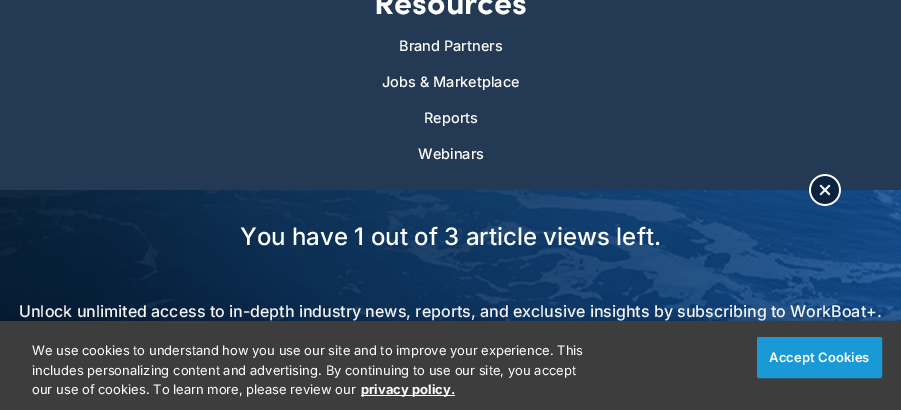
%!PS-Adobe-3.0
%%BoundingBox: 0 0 901 410
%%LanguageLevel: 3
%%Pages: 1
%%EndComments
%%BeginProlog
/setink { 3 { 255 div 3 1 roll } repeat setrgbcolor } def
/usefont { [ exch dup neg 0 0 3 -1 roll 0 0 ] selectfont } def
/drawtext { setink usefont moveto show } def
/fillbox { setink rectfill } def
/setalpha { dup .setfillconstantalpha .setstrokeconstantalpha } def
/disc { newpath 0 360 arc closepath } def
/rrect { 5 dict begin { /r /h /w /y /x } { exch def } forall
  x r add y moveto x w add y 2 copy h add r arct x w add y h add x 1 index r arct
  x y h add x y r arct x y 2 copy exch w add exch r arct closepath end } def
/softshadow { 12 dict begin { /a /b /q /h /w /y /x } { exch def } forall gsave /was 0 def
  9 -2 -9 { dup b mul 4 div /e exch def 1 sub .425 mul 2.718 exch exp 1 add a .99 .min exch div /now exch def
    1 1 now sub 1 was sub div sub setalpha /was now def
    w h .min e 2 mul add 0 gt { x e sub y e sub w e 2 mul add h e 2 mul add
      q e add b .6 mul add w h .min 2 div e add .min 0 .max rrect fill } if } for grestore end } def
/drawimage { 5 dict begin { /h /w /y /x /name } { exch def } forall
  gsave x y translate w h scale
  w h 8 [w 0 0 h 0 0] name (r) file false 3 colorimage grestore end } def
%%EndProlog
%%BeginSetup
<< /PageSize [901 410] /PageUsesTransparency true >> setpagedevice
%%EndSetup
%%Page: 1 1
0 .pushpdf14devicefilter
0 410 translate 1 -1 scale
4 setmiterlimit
0 0 901 410 36 57 83 fillbox
(Resources) 374 14 /Sofia-Bold 32 255 255 255 drawtext
(Brand Partners) 399 51 /Inter-Medium 14.5 255 255 255 drawtext
(Jobs & Marketplace) 382 87 /Inter-Medium 14.5 255 255 255 drawtext
(Reports) 424 123 /Inter-Medium 14.5 255 255 255 drawtext
(Webinars) 418 159 /Inter-Medium 14.5 255 255 255 drawtext
(assets/img1.rgb) 0 190 901 131 drawimage
12 35 64 setink
825 190 16 disc fill
(assets/img2.rgb) 809 174 32 32 drawimage
(You have 1 out of 3 article views left.) 240 245 /Inter-Medium 24 255 255 255 drawtext
(Unlock unlimited access to in-depth industry news, reports, and exclusive insights by subscribing to WorkBoat+.) 19 317 /Inter-Medium 16 255 255 255 drawtext
0 0 0 setink
0 321 901 89 0 9 0.2 softshadow
0 321 901 89 61 61 61 fillbox
(We use cookies to understand how you use our site and to improve your experience. This) 32 355 /Inter-Regular 13 255 255 255 drawtext
(includes personalizing content and advertising. By continuing to use our site, you accept) 32 375 /Inter-Regular 13 255 255 255 drawtext
(our use of cookies. To learn more, please review our) 32 394 /Inter-Regular 13 255 255 255 drawtext
361 395 94 1 255 255 255 fillbox
(privacy policy.) 361 394 /Inter-Bold 13 255 255 255 drawtext
25 154 214 setink
757.5 337.5 124 40 1.5 rrect gsave fill grestore
stroke
/Inter-SemiBold 13 usefont
255 255 255 setink
769 362 moveto 0.1 0 (Accept Cookies) ashow
.poppdf14devicefilter showpage
%%EOF
